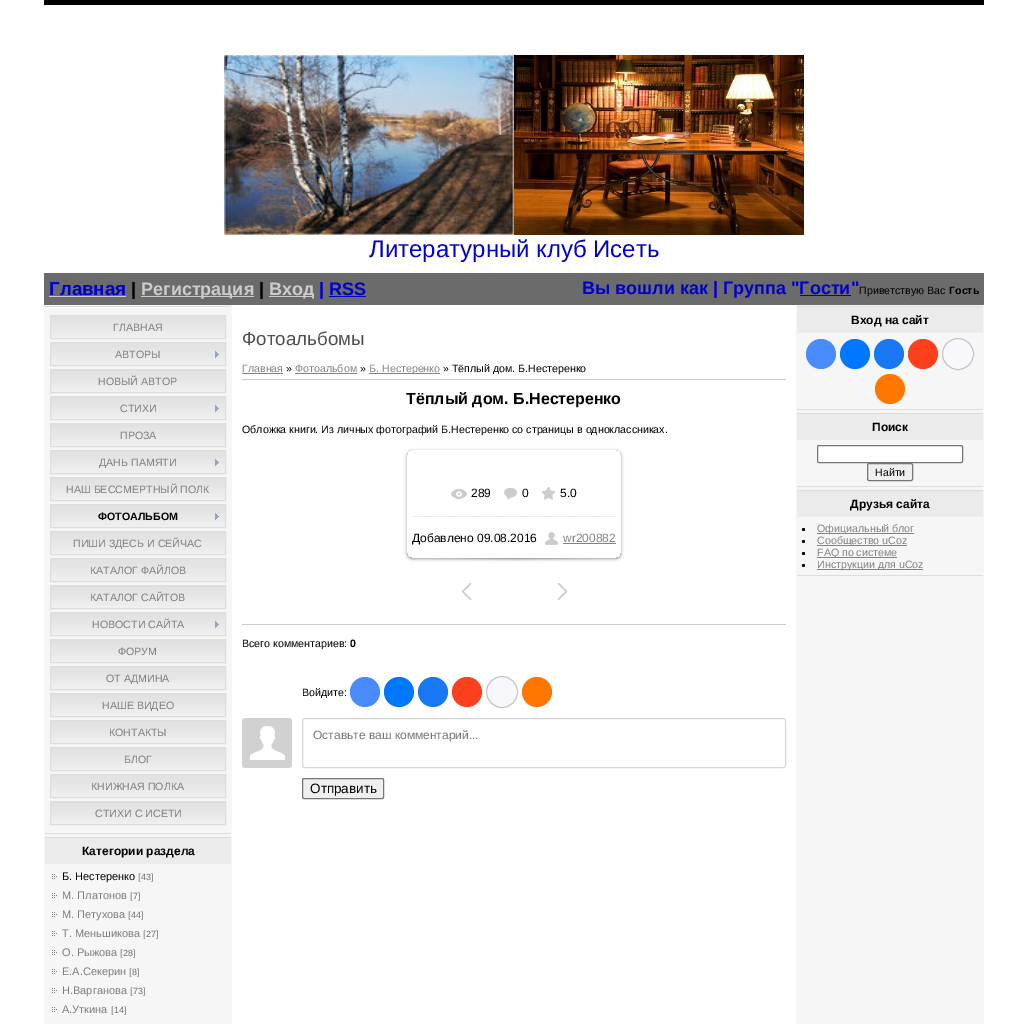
%!PS-Adobe-3.0
%%BoundingBox: 0 0 1028 1024
%%LanguageLevel: 3
%%Pages: 1
%%EndComments
%%BeginProlog
/setink { 3 { 255 div 3 1 roll } repeat setrgbcolor } def
/usefont { [ exch dup neg 0 0 3 -1 roll 0 0 ] selectfont } def
/drawtext { setink usefont moveto show } def
/fillbox { setink rectfill } def
/setalpha { dup .setfillconstantalpha .setstrokeconstantalpha } def
/disc { newpath 0 360 arc closepath } def
/rrect { 5 dict begin { /r /h /w /y /x } { exch def } forall
  x r add y moveto x w add y 2 copy h add r arct x w add y h add x 1 index r arct
  x y h add x y r arct x y 2 copy exch w add exch r arct closepath end } def
/softshadow { 12 dict begin { /a /b /q /h /w /y /x } { exch def } forall gsave /was 0 def
  9 -2 -9 { dup b mul 4 div /e exch def 1 sub .425 mul 2.718 exch exp 1 add a .99 .min exch div /now exch def
    1 1 now sub 1 was sub div sub setalpha /was now def
    w h .min e 2 mul add 0 gt { x e sub y e sub w e 2 mul add h e 2 mul add
      q e add b .6 mul add w h .min 2 div e add .min 0 .max rrect fill } if } for grestore end } def
/drawimage { 5 dict begin { /h /w /y /x /name } { exch def } forall
  gsave x y translate w h scale
  w h 8 [w 0 0 h 0 0] name (r) file false 3 colorimage grestore end } def
%%EndProlog
%%BeginSetup
<< /PageSize [1028 1024] /PageUsesTransparency true >> setpagedevice
%%EndSetup
%%Page: 1 1
0 .pushpdf14devicefilter
0 1024 translate 1 -1 scale
4 setmiterlimit
0 0 1028 1024 255 255 255 fillbox
44 0 940 5 0 0 0 fillbox
(assets/img1.rgb) 224 55 290 180 drawimage
(assets/img2.rgb) 514 55 290 180 drawimage
(Литературный клуб Исеть) 369 257 /LiberationSans-Regular 24 0 0 205 drawtext
44 273 940 32 107 107 107 fillbox
(Главная) 49 295 /LiberationSans-Bold 18.75 0 0 205 drawtext
49 296 77 1 204 204 204 fillbox
(|) 131 295 /LiberationSans-Bold 18 0 0 0 drawtext
141 296 113 1 204 204 204 fillbox
(Регистрация) 141 295 /LiberationSans-Bold 18 204 204 204 drawtext
(|) 259 295 /LiberationSans-Bold 18 0 0 0 drawtext
269 296 45 1 204 204 204 fillbox
(Вход) 269 295 /LiberationSans-Bold 18 204 204 204 drawtext
(| RSS) 319 295 /LiberationSans-Bold 18 0 0 205 drawtext
329 296 37 1 0 0 205 fillbox
(Вы вошли как | Группа "Гости") 582 294 /LiberationSans-Bold 18 0 0 205 drawtext
800 295 51 1 0 0 205 fillbox
(Приветствую Вас) 859 294 /LiberationSans-Regular 10.65 0 0 0 drawtext
(Гость) 949 294 /LiberationSans-Bold 10.65 0 0 0 drawtext
44 305 188 719 246 246 246 fillbox
45 306 186 1 221 221 221 fillbox
45 833 186 1 221 221 221 fillbox
(assets/img3.rgb) 51 316 174 22 drawimage
50.5 315.5 175 23 rectstroke
(ГЛАВНАЯ) 113 331 /LiberationSans-Regular 10.65 125 125 125 drawtext
(assets/img3.rgb) 51 343 174 22 drawimage
221 221 221 setink
50.5 342.5 175 23 rectstroke
(АВТОРЫ) 115 358 /LiberationSans-Regular 10.65 125 125 125 drawtext
(assets/img4.rgb) 215 351 4 7 drawimage
(assets/img3.rgb) 51 370 174 22 drawimage
221 221 221 setink
50.5 369.5 175 23 rectstroke
(НОВЫЙ АВТОР) 98 385 /LiberationSans-Regular 10.65 125 125 125 drawtext
(assets/img3.rgb) 51 397 174 22 drawimage
221 221 221 setink
50.5 396.5 175 23 rectstroke
(СТИХИ) 120 412 /LiberationSans-Regular 10.65 125 125 125 drawtext
(assets/img4.rgb) 215 405 4 7 drawimage
(assets/img3.rgb) 51 424 174 22 drawimage
221 221 221 setink
50.5 423.5 175 23 rectstroke
(ПРОЗА) 120 439 /LiberationSans-Regular 10.65 125 125 125 drawtext
(assets/img3.rgb) 51 451 174 22 drawimage
221 221 221 setink
50.5 450.5 175 23 rectstroke
(ДАНЬ ПАМЯТИ) 99 466 /LiberationSans-Regular 10.65 125 125 125 drawtext
(assets/img4.rgb) 215 459 4 7 drawimage
(assets/img3.rgb) 51 478 174 22 drawimage
221 221 221 setink
50.5 477.5 175 23 rectstroke
(НАШ БЕССМЕРТНЫЙ ПОЛК) 66 493 /LiberationSans-Regular 10.65 125 125 125 drawtext
(assets/img3.rgb) 51 505 174 22 drawimage
221 221 221 setink
50.5 504.5 175 23 rectstroke
(ФОТОАЛЬБОМ) 98 520 /LiberationSans-Bold 10.65 0 0 0 drawtext
(assets/img4.rgb) 215 513 4 7 drawimage
(assets/img3.rgb) 51 532 174 22 drawimage
221 221 221 setink
50.5 531.5 175 23 rectstroke
(ПИШИ ЗДЕСЬ И СЕЙЧАС) 73 547 /LiberationSans-Regular 10.65 125 125 125 drawtext
(assets/img3.rgb) 51 559 174 22 drawimage
221 221 221 setink
50.5 558.5 175 23 rectstroke
(КАТАЛОГ ФАЙЛОВ) 90 574 /LiberationSans-Regular 10.65 125 125 125 drawtext
(assets/img3.rgb) 51 586 174 22 drawimage
221 221 221 setink
50.5 585.5 175 23 rectstroke
(КАТАЛОГ САЙТОВ) 90 601 /LiberationSans-Regular 10.65 125 125 125 drawtext
(assets/img3.rgb) 51 613 174 22 drawimage
221 221 221 setink
50.5 612.5 175 23 rectstroke
(НОВОСТИ САЙТА) 92 628 /LiberationSans-Regular 10.65 125 125 125 drawtext
(assets/img4.rgb) 215 621 4 7 drawimage
(assets/img3.rgb) 51 640 174 22 drawimage
221 221 221 setink
50.5 639.5 175 23 rectstroke
(ФОРУМ) 118 655 /LiberationSans-Regular 10.65 125 125 125 drawtext
(assets/img3.rgb) 51 667 174 22 drawimage
221 221 221 setink
50.5 666.5 175 23 rectstroke
(ОТ АДМИНА) 106 682 /LiberationSans-Regular 10.65 125 125 125 drawtext
(assets/img3.rgb) 51 694 174 22 drawimage
221 221 221 setink
50.5 693.5 175 23 rectstroke
(НАШЕ ВИДЕО) 102 709 /LiberationSans-Regular 10.65 125 125 125 drawtext
(assets/img3.rgb) 51 721 174 22 drawimage
221 221 221 setink
50.5 720.5 175 23 rectstroke
(КОНТАКТЫ) 109 736 /LiberationSans-Regular 10.65 125 125 125 drawtext
(assets/img3.rgb) 51 748 174 22 drawimage
221 221 221 setink
50.5 747.5 175 23 rectstroke
(БЛОГ) 124 763 /LiberationSans-Regular 10.65 125 125 125 drawtext
(assets/img3.rgb) 51 775 174 22 drawimage
221 221 221 setink
50.5 774.5 175 23 rectstroke
(КНИЖНАЯ ПОЛКА) 91 790 /LiberationSans-Regular 10.65 125 125 125 drawtext
(assets/img3.rgb) 51 802 174 22 drawimage
221 221 221 setink
50.5 801.5 175 23 rectstroke
(СТИХИ С ИСЕТИ) 95 817 /LiberationSans-Regular 10.65 125 125 125 drawtext
45 837 186 1 221 221 221 fillbox
45 838 186 26 235 235 235 fillbox
(Категории раздела) 82 855 /LiberationSans-Bold 12 0 0 0 drawtext
(assets/img5.rgb) 52 874 6 6 drawimage
(Б. Нестеренко) 62 880 /LiberationSans-Regular 11 0 0 0 drawtext
([43]) 138 880 /LiberationSans-Regular 9 110 110 110 drawtext
(assets/img5.rgb) 52 893 6 6 drawimage
(М. Платонов) 62 899 /LiberationSans-Regular 11 125 125 125 drawtext
([7]) 130 899 /LiberationSans-Regular 9 110 110 110 drawtext
(assets/img5.rgb) 52 912 6 6 drawimage
(М. Петухова) 62 918 /LiberationSans-Regular 11 125 125 125 drawtext
([44]) 128 918 /LiberationSans-Regular 9 110 110 110 drawtext
(assets/img5.rgb) 52 931 6 6 drawimage
(Т. Меньшикова) 62 937 /LiberationSans-Regular 11 125 125 125 drawtext
([27]) 143 937 /LiberationSans-Regular 9 110 110 110 drawtext
(assets/img5.rgb) 52 950 6 6 drawimage
(О. Рыжова) 62 956 /LiberationSans-Regular 11 125 125 125 drawtext
([28]) 120 956 /LiberationSans-Regular 9 110 110 110 drawtext
(assets/img5.rgb) 52 969 6 6 drawimage
(Е.А.Секерин) 62 975 /LiberationSans-Regular 11 125 125 125 drawtext
([8]) 129 975 /LiberationSans-Regular 9 110 110 110 drawtext
(assets/img5.rgb) 52 988 6 6 drawimage
(Н.Варганова) 62 994 /LiberationSans-Regular 11 125 125 125 drawtext
([73]) 130 994 /LiberationSans-Regular 9 110 110 110 drawtext
(assets/img5.rgb) 52 1007 6 6 drawimage
(А.Уткина) 62 1013 /LiberationSans-Regular 11 125 125 125 drawtext
([14]) 111 1013 /LiberationSans-Regular 9 110 110 110 drawtext
(Фотоальбомы) 242 345 /LiberationSans-Regular 18.75 80 80 80 drawtext
(Главная) 242 372 /LiberationSans-Regular 10.65 131 131 131 drawtext
242 373 41 1 131 131 131 fillbox
(») 286 372 /LiberationSans-Regular 10.65 0 0 0 drawtext
(Фотоальбом) 295 372 /LiberationSans-Regular 10.65 131 131 131 drawtext
295 373 62 1 131 131 131 fillbox
(») 360 372 /LiberationSans-Regular 10.65 0 0 0 drawtext
369 373 71 1 131 131 131 fillbox
(Б. Нестеренко) 369 372 /LiberationSans-Regular 10.65 131 131 131 drawtext
(» Тёплый дом. Б.Нестеренко) 443 372 /LiberationSans-Regular 10.65 0 0 0 drawtext
242 379 544 1 204 204 204 fillbox
(Тёплый дом. Б.Нестеренко) 406 404 /LiberationSans-Bold 16 0 0 0 drawtext
(Обложка книги. Из личных фотографий Б.Нестеренко со страницы в одноклассниках.) 242 433 /LiberationSans-Regular 10.65 0 0 0 drawtext
gsave
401 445 moveto 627 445 lineto 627 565 lineto 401 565 lineto closepath 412 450 moveto 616 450 lineto 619 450 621 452 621 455 curveto 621 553 lineto 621 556 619 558 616 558 curveto 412 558 lineto 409 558 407 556 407 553 curveto 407 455 lineto 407 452 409 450 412 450 curveto closepath eoclip newpath
407 451 214 108 5 1.5 0.37 softshadow
grestore
(assets/img6.rgb) 451 489 16 10 drawimage
(289) 471 497 /LiberationSans-Regular 12 0 0 0 drawtext
(assets/img7.rgb) 504 488 13 12 drawimage
(0) 522 497 /LiberationSans-Regular 12 0 0 0 drawtext
(assets/img8.rgb) 542 487 13 13 drawimage
(5.0) 560 497 /LiberationSans-Regular 12 0 0 0 drawtext
(assets/img9.rgb) 412 516 203 1 drawimage
(Добавлено 09.08.2016) 412 542 /LiberationSans-Regular 12 0 0 0 drawtext
(assets/img10.rgb) 545 532 13 13 drawimage
(wr200882) 563 542 /LiberationSans-Regular 12 131 131 131 drawtext
563 543 53 1 131 131 131 fillbox
(assets/img11.rgb) 434 558 161 3 drawimage
(assets/img12.rgb) 461 583 11 17 drawimage
(assets/img13.rgb) 557 583 11 17 drawimage
242 624 544 1 204 204 204 fillbox
(Всего комментариев:) 242 647 /LiberationSans-Regular 10.65 0 0 0 drawtext
(0) 350 647 /LiberationSans-Bold 10.65 0 0 0 drawtext
(Войдите:) 302 696 /LiberationSans-Regular 10.65 0 0 0 drawtext
73 139 250 setink
365 692 15 disc fill
0 119 255 setink
399 692 15 disc fill
24 119 242 setink
433 692 15 disc fill
252 63 29 setink
467 692 15 disc fill
248 248 252 setink
502 692 15.5 disc gsave fill grestore
196 196 196 setink
stroke
255 119 0 setink
537 692 15 disc fill
(assets/img14.rgb) 242 718 50 50 drawimage
214 214 214 setink
302.5 718.5 483 49 2.5 rrect stroke
(Оставьте ваш комментарий...) 313 739 /LiberationSans-Regular 12 117 117 117 drawtext
239 239 239 setink
302.5 778.5 81 20 1.5 rrect gsave fill grestore
118 118 118 setink
stroke
(Отправить) 310 793 /LiberationSans-Regular 13.5 0 0 0 drawtext
796 305 188 719 246 246 246 fillbox
797 306 186 1 221 221 221 fillbox
797 409 186 1 221 221 221 fillbox
797 307 186 26 235 235 235 fillbox
(Вход на сайт) 851 324 /LiberationSans-Bold 12 0 0 0 drawtext
73 139 250 setink
821 354 15 disc fill
0 119 255 setink
855 354 15 disc fill
24 119 242 setink
889 354 15 disc fill
252 63 29 setink
923 354 15 disc fill
248 248 252 setink
958 354 15.5 disc gsave fill grestore
196 196 196 setink
stroke
255 119 0 setink
890 389 15 disc fill
797 413 186 1 221 221 221 fillbox
797 486 186 1 221 221 221 fillbox
797 414 186 26 235 235 235 fillbox
(Поиск) 872 431 /LiberationSans-Bold 12 0 0 0 drawtext
255 255 255 setink
817.5 445.5 145 17 1.5 rrect gsave fill grestore
118 118 118 setink
stroke
239 239 239 setink
867.5 463.5 45 17 1.5 rrect gsave fill grestore
118 118 118 setink
stroke
(Найти) 875 476 /LiberationSans-Regular 10.65 0 0 0 drawtext
797 490 186 1 221 221 221 fillbox
797 575 186 1 221 221 221 fillbox
797 491 186 26 235 235 235 fillbox
(Друзья сайта) 850 508 /LiberationSans-Bold 12 0 0 0 drawtext
803.5 529.5 1.5 disc fill
817 533 97 1 131 131 131 fillbox
(Официальный блог) 817 532 /LiberationSans-Regular 10.65 131 131 131 drawtext
0 0 0 setink
803.5 541.5 1.5 disc fill
817 545 90 1 131 131 131 fillbox
(Сообщество uCoz) 817 544 /LiberationSans-Regular 10.65 131 131 131 drawtext
0 0 0 setink
803.5 553.5 1.5 disc fill
817 557 80 1 131 131 131 fillbox
(FAQ по системе) 817 556 /LiberationSans-Regular 10.65 131 131 131 drawtext
0 0 0 setink
803.5 565.5 1.5 disc fill
817 569 106 1 131 131 131 fillbox
(Инструкции для uCoz) 817 568 /LiberationSans-Regular 10.65 131 131 131 drawtext
.poppdf14devicefilter showpage
%%EOF
